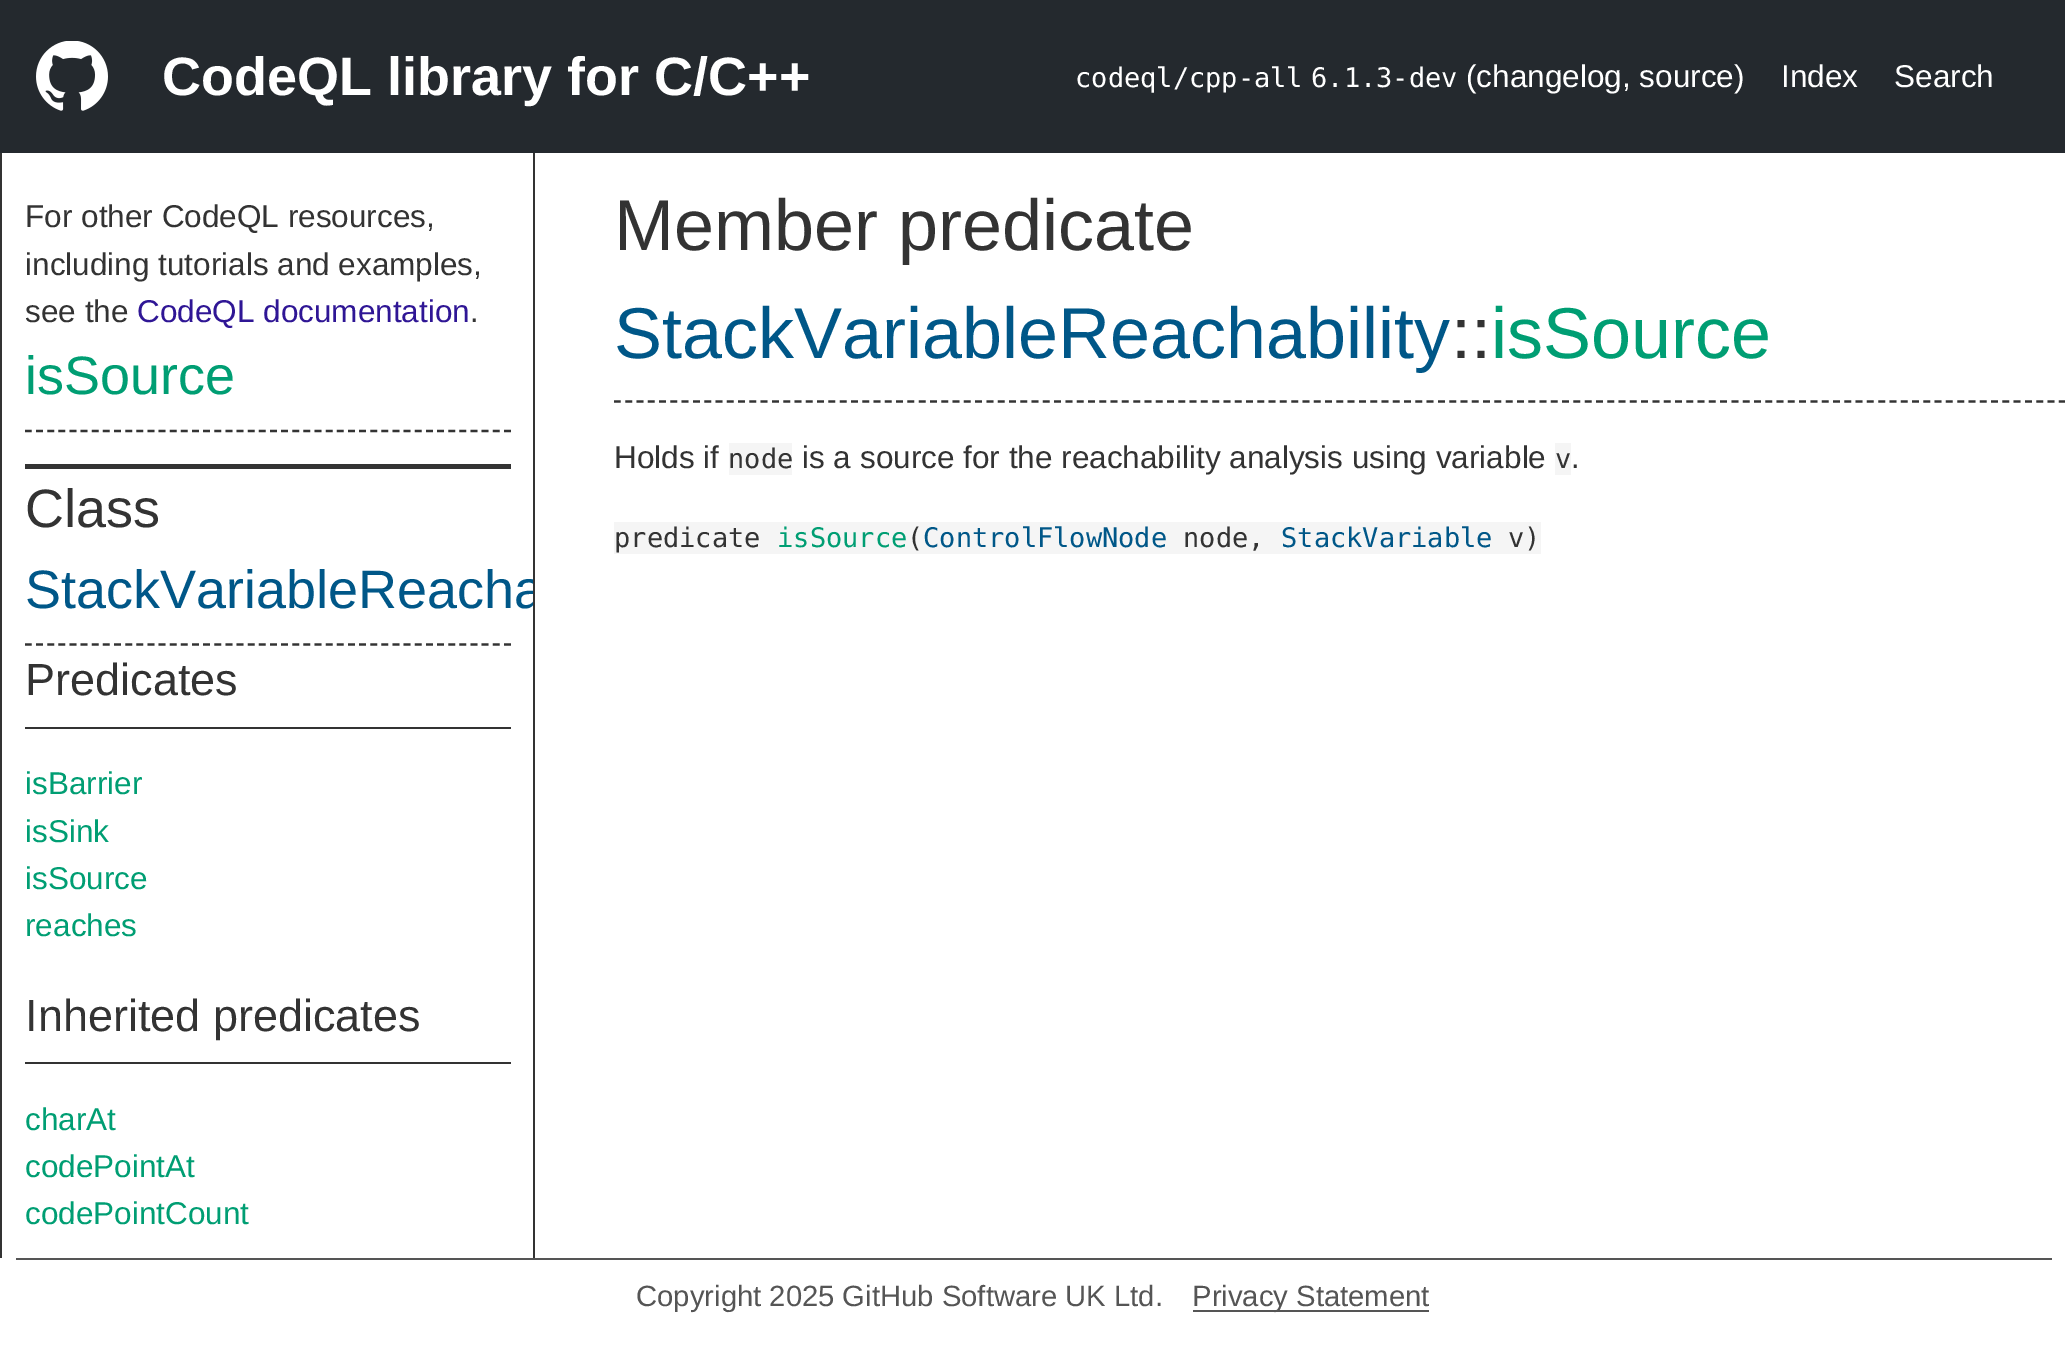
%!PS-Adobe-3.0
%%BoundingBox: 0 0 2065 1346
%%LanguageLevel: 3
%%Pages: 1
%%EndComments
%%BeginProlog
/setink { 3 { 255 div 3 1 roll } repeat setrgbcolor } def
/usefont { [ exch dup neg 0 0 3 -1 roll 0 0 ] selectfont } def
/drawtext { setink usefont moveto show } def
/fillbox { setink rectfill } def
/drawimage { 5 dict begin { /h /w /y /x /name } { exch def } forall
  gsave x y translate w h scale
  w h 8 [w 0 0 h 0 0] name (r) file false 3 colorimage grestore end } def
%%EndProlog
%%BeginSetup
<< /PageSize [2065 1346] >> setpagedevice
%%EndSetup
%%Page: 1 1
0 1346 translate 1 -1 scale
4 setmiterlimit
0 0 2065 1346 255 255 255 fillbox
0 0 2065 153 36 41 46 fillbox
(assets/img1.rgb) 36 41 72 70 drawimage
(CodeQL library for C/C++) 162 95 /LiberationSans-Bold 54 255 255 255 drawtext
(codeql/cpp-all) 1075 87 /DejaVuSansMono-Regular 27 255 255 255 drawtext
(6.1.3-dev) 1311 87 /DejaVuSansMono-Regular 27 255 255 255 drawtext
(\(changelog, source\)) 1466 87 /LiberationSans-Regular 31.5 255 255 255 drawtext
(Index) 1781 87 /LiberationSans-Regular 31.5 255 255 255 drawtext
(Search) 1894 87 /LiberationSans-Regular 31.5 255 255 255 drawtext
533 153 2 1105 51 51 51 fillbox
0 153 2 1105 51 51 51 fillbox
25 464 486 5 51 51 51 fillbox
(For other CodeQL resources,) 25 227 /LiberationSans-Regular 31.5 51 51 51 drawtext
(including tutorials and examples,) 25 275 /LiberationSans-Regular 31.5 51 51 51 drawtext
(see the) 25 322 /LiberationSans-Regular 31.5 51 51 51 drawtext
(CodeQL documentation) 137 322 /LiberationSans-Regular 31.5 47 22 149 drawtext
(.) 470 322 /LiberationSans-Regular 31.5 51 51 51 drawtext
2.2 setlinewidth
[6.75 4.39] 0 setdash
25 431 moveto 511 431 lineto stroke
(isSource) 25 394 /LiberationSans-Regular 54 0 158 115 drawtext
51 51 51 setink
25 644.5 moveto 511 644.5 lineto stroke
(Class) 25 527 /LiberationSans-Regular 54 51 51 51 drawtext
gsave
2 153 531 1105 rectclip
(StackVariableReacha) 25 608 /LiberationSans-Regular 54 0 87 136 drawtext
grestore
25 727 486 2 51 51 51 fillbox
(Predicates) 25 695 /LiberationSans-Regular 45 51 51 51 drawtext
(isBarrier) 25 794 /LiberationSans-Regular 31.5 0 158 115 drawtext
(isSink) 25 842 /LiberationSans-Regular 31.5 0 158 115 drawtext
(isSource) 25 889 /LiberationSans-Regular 31.5 0 158 115 drawtext
(reaches) 25 936 /LiberationSans-Regular 31.5 0 158 115 drawtext
25 1062 486 2 51 51 51 fillbox
(Inherited predicates) 25 1031 /LiberationSans-Regular 45 51 51 51 drawtext
(charAt) 25 1130 /LiberationSans-Regular 31.5 0 158 115 drawtext
(codePointAt) 25 1177 /LiberationSans-Regular 31.5 0 158 115 drawtext
(codePointCount) 25 1224 /LiberationSans-Regular 31.5 0 158 115 drawtext
51 51 51 setink
[6.75 4.54] 0 setdash
614 401.5 moveto 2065.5 401.5 lineto stroke
(Member predicate) 614 250 /LiberationSans-Regular 72 51 51 51 drawtext
(StackVariableReachability) 614 358 /LiberationSans-Regular 72 0 87 136 drawtext
(::) 1451 358 /LiberationSans-Regular 72 51 51 51 drawtext
(isSource) 1491 358 /LiberationSans-Regular 72 0 158 115 drawtext
(Holds if) 614 468 /LiberationSans-Regular 31.5 51 51 51 drawtext
729 443 63 32 245 245 245 fillbox
(node) 728 468 /DejaVuSansMono-Regular 27 51 51 51 drawtext
(is a source for the reachability analysis using variable) 802 468 /LiberationSans-Regular 31.5 51 51 51 drawtext
1555 443 16 32 245 245 245 fillbox
(v) 1555 468 /DejaVuSansMono-Regular 27 51 51 51 drawtext
(.) 1571 468 /LiberationSans-Regular 31.5 51 51 51 drawtext
614 522 927 32 245 245 245 fillbox
(predicate) 614 547 /DejaVuSansMono-Regular 27 51 51 51 drawtext
(isSource) 777 547 /DejaVuSansMono-Regular 27 0 158 115 drawtext
(\() 907 547 /DejaVuSansMono-Regular 27 51 51 51 drawtext
(ControlFlowNode) 923 547 /DejaVuSansMono-Regular 27 0 87 136 drawtext
(node,) 1183 547 /DejaVuSansMono-Regular 27 51 51 51 drawtext
(StackVariable) 1281 547 /DejaVuSansMono-Regular 27 0 87 136 drawtext
(v\)) 1508 547 /DejaVuSansMono-Regular 27 51 51 51 drawtext
16 1258 2036 2 85 85 85 fillbox
(Copyright 2025 GitHub Software UK Ltd.) 636 1306 /LiberationSans-Regular 29.25 85 85 85 drawtext
1193 1310 236 2 85 85 85 fillbox
(Privacy Statement) 1192 1306 /LiberationSans-Regular 29.25 85 85 85 drawtext
showpage
%%EOF
